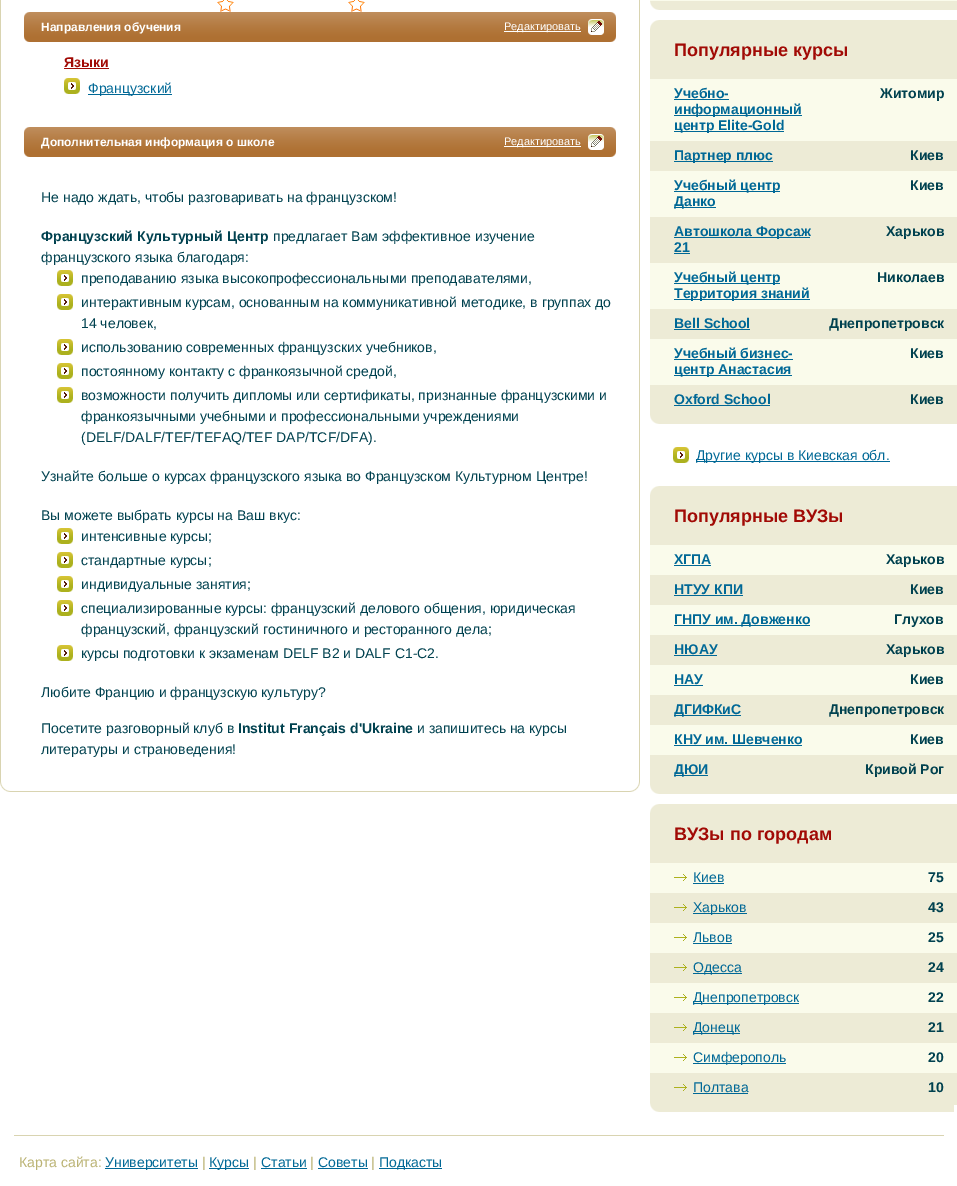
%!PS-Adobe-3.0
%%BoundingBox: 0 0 957 1186
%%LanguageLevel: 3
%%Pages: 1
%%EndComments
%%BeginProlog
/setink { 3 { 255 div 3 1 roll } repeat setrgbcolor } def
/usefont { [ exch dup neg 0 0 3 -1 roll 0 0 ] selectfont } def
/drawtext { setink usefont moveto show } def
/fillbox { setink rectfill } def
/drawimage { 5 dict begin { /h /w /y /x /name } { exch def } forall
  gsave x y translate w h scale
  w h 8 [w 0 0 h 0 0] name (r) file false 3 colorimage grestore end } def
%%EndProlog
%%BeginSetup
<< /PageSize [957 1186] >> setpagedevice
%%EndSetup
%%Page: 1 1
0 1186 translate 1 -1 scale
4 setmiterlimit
0 0 957 1186 255 255 255 fillbox
639 0 1 781 217 212 177 fillbox
0 0 1 781 217 212 177 fillbox
(assets/img1.rgb) 217 0 17 12 drawimage
(assets/img1.rgb) 348 0 17 12 drawimage
(assets/img2.rgb) 24 12 8 30 drawimage
(assets/img3.rgb) 32 12 555 30 drawimage
(Направления обучения) 41 31 /LiberationSans-Bold 12 255 255 255 drawtext
504 31 77 1 255 255 255 fillbox
(Редактировать) 504 30 /LiberationSans-Regular 11 255 255 255 drawtext
(assets/img4.rgb) 587 12 29 30 drawimage
(assets/img5.rgb) 588 19 16 16 drawimage
(Языки) 64 67 /LiberationSans-Bold 14 161 10 5 drawtext
64 68 45 1 161 10 5 fillbox
(assets/img6.rgb) 64 78 16 16 drawimage
88 94 84 1 0 104 150 fillbox
(Французский) 88 93 /LiberationSans-Regular 14 0 104 150 drawtext
(assets/img2.rgb) 24 127 8 30 drawimage
(assets/img3.rgb) 32 127 555 30 drawimage
(Дополнительная информация о школе) 41 146 /LiberationSans-Bold 12 255 255 255 drawtext
504 146 77 1 255 255 255 fillbox
(Редактировать) 504 145 /LiberationSans-Regular 11 255 255 255 drawtext
(assets/img4.rgb) 587 127 29 30 drawimage
(assets/img5.rgb) 588 134 16 16 drawimage
(Не надо ждать, чтобы разговаривать на французском!) 41 202 /LiberationSans-Regular 14 0 65 79 drawtext
(Французский Культурный Центр) 41 241 /LiberationSans-Bold 14 0 65 79 drawtext
(предлагает Вам эффективное изучение) 273 241 /LiberationSans-Regular 14 0 65 79 drawtext
(французского языка благодаря:) 41 262 /LiberationSans-Regular 14 0 65 79 drawtext
(assets/img6.rgb) 57 270 16 16 drawimage
(преподаванию языка высокопрофессиональными преподавателями,) 81 283 /LiberationSans-Regular 14 0 65 79 drawtext
(assets/img6.rgb) 57 294 16 16 drawimage
(интерактивным курсам, основанным на коммуникативной методике, в группах до) 81 307 /LiberationSans-Regular 14 0 65 79 drawtext
(14 человек,) 81 328 /LiberationSans-Regular 14 0 65 79 drawtext
(assets/img6.rgb) 57 339 16 16 drawimage
(использованию современных французских учебников,) 81 352 /LiberationSans-Regular 14 0 65 79 drawtext
(assets/img6.rgb) 57 363 16 16 drawimage
(постоянному контакту с франкоязычной средой,) 81 376 /LiberationSans-Regular 14 0 65 79 drawtext
(assets/img6.rgb) 57 387 16 16 drawimage
(возможности получить дипломы или сертификаты, признанные французскими и) 81 400 /LiberationSans-Regular 14 0 65 79 drawtext
(франкоязычными учебными и профессиональными учреждениями) 81 421 /LiberationSans-Regular 14 0 65 79 drawtext
(\(DELF/DALF/TEF/TEFAQ/TEF DAP/TCF/DFA\).) 81 442 /LiberationSans-Regular 14 0 65 79 drawtext
(Узнайте больше о курсах французского языка во Французском Культурном Центре!) 41 481 /LiberationSans-Regular 14 0 65 79 drawtext
(Вы можете выбрать курсы на Ваш вкус:) 41 520 /LiberationSans-Regular 14 0 65 79 drawtext
(assets/img6.rgb) 57 528 16 16 drawimage
(интенсивные курсы;) 81 541 /LiberationSans-Regular 14 0 65 79 drawtext
(assets/img6.rgb) 57 552 16 16 drawimage
(стандартные курсы;) 81 565 /LiberationSans-Regular 14 0 65 79 drawtext
(assets/img6.rgb) 57 576 16 16 drawimage
(индивидуальные занятия;) 81 589 /LiberationSans-Regular 14 0 65 79 drawtext
(assets/img6.rgb) 57 600 16 16 drawimage
(специализированные курсы: французский делового общения, юридическая) 81 613 /LiberationSans-Regular 14 0 65 79 drawtext
(французский, французский гостиничного и ресторанного дела;) 81 634 /LiberationSans-Regular 14 0 65 79 drawtext
(assets/img6.rgb) 57 645 16 16 drawimage
(курсы подготовки к экзаменам DELF B2 и DALF C1-C2.) 81 658 /LiberationSans-Regular 14 0 65 79 drawtext
(Любите Францию и французскую культуру?) 41 697 /LiberationSans-Regular 14 0 65 79 drawtext
(Посетите разговорный клуб в) 41 733 /LiberationSans-Regular 14 0 65 79 drawtext
(Institut Français d'Ukraine) 238 733 /LiberationSans-Bold 14 0 65 79 drawtext
(и запишитесь на курсы) 417 733 /LiberationSans-Regular 14 0 65 79 drawtext
(литературы и страноведения!) 41 754 /LiberationSans-Regular 14 0 65 79 drawtext
11 791 618 1 217 212 177 fillbox
(assets/img7.rgb) 0 781 11 11 drawimage
(assets/img8.rgb) 629 781 11 11 drawimage
650 0 307 1 250 251 235 fillbox
659 1 298 9 237 235 214 fillbox
(assets/img9.rgb) 650 1 9 9 drawimage
659 20 298 9 237 235 214 fillbox
(assets/img10.rgb) 650 20 9 9 drawimage
650 29 307 386 237 235 214 fillbox
(Популярные курсы) 674 56 /LiberationSans-Bold 18 161 10 5 drawtext
650 79 307 62 250 251 235 fillbox
(Учебно-) 674 98 /LiberationSans-Bold 14 0 104 150 drawtext
674 99 55 1 0 104 150 fillbox
674 115 128 1 0 104 150 fillbox
(информационный) 674 114 /LiberationSans-Bold 14 0 104 150 drawtext
674 131 110 1 0 104 150 fillbox
(центр Elite-Gold) 674 130 /LiberationSans-Bold 14 0 104 150 drawtext
(Житомир) 880 98 /LiberationSans-Bold 14 0 65 79 drawtext
674 161 99 1 0 104 150 fillbox
(Партнер плюс) 674 160 /LiberationSans-Bold 14 0 104 150 drawtext
(Киев) 910 160 /LiberationSans-Bold 14 0 65 79 drawtext
650 171 307 46 250 251 235 fillbox
674 191 106 1 0 104 150 fillbox
(Учебный центр) 674 190 /LiberationSans-Bold 14 0 104 150 drawtext
674 207 42 1 0 104 150 fillbox
(Данко) 674 206 /LiberationSans-Bold 14 0 104 150 drawtext
(Киев) 910 190 /LiberationSans-Bold 14 0 65 79 drawtext
674 237 136 1 0 104 150 fillbox
(Автошкола Форсаж) 674 236 /LiberationSans-Bold 14 0 104 150 drawtext
(21) 674 252 /LiberationSans-Bold 14 0 104 150 drawtext
674 253 16 1 0 104 150 fillbox
(Харьков) 886 236 /LiberationSans-Bold 14 0 65 79 drawtext
650 263 307 46 250 251 235 fillbox
674 283 106 1 0 104 150 fillbox
(Учебный центр) 674 282 /LiberationSans-Bold 14 0 104 150 drawtext
674 299 136 1 0 104 150 fillbox
(Территория знаний) 674 298 /LiberationSans-Bold 14 0 104 150 drawtext
(Николаев) 877 282 /LiberationSans-Bold 14 0 65 79 drawtext
(Bell School) 674 328 /LiberationSans-Bold 14 0 104 150 drawtext
674 329 76 1 0 104 150 fillbox
(Днепропетровск) 829 328 /LiberationSans-Bold 14 0 65 79 drawtext
650 339 307 46 250 251 235 fillbox
(Учебный бизнес-) 674 358 /LiberationSans-Bold 14 0 104 150 drawtext
674 359 119 1 0 104 150 fillbox
674 375 118 1 0 104 150 fillbox
(центр Анастасия) 674 374 /LiberationSans-Bold 14 0 104 150 drawtext
(Киев) 910 358 /LiberationSans-Bold 14 0 65 79 drawtext
(Oxford School) 674 404 /LiberationSans-Bold 14 0 104 150 drawtext
674 405 96 1 0 104 150 fillbox
(Киев) 910 404 /LiberationSans-Bold 14 0 65 79 drawtext
659 415 298 9 237 235 214 fillbox
(assets/img9.rgb) 650 415 9 9 drawimage
(assets/img6.rgb) 673 447 16 16 drawimage
696 461 194 1 0 104 150 fillbox
(Другие курсы в Киевская обл.) 696 460 /LiberationSans-Regular 14 0 104 150 drawtext
659 486 298 9 237 235 214 fillbox
(assets/img10.rgb) 650 486 9 9 drawimage
650 495 307 290 237 235 214 fillbox
(Популярные ВУЗы) 674 522 /LiberationSans-Bold 18 161 10 5 drawtext
650 545 307 30 250 251 235 fillbox
(ХГПА) 674 564 /LiberationSans-Bold 14 0 104 150 drawtext
674 565 37 1 0 104 150 fillbox
(Харьков) 886 564 /LiberationSans-Bold 14 0 65 79 drawtext
(НТУУ КПИ) 674 594 /LiberationSans-Bold 14 0 104 150 drawtext
674 595 69 1 0 104 150 fillbox
(Киев) 910 594 /LiberationSans-Bold 14 0 65 79 drawtext
650 605 307 30 250 251 235 fillbox
674 625 136 1 0 104 150 fillbox
(ГНПУ им. Довженко) 674 624 /LiberationSans-Bold 14 0 104 150 drawtext
(Глухов) 894 624 /LiberationSans-Bold 14 0 65 79 drawtext
(НЮАУ) 674 654 /LiberationSans-Bold 14 0 104 150 drawtext
674 655 43 1 0 104 150 fillbox
(Харьков) 886 654 /LiberationSans-Bold 14 0 65 79 drawtext
650 665 307 30 250 251 235 fillbox
(НАУ) 674 684 /LiberationSans-Bold 14 0 104 150 drawtext
674 685 29 1 0 104 150 fillbox
(Киев) 910 684 /LiberationSans-Bold 14 0 65 79 drawtext
674 715 67 1 0 104 150 fillbox
(ДГИФКиС) 674 714 /LiberationSans-Bold 14 0 104 150 drawtext
(Днепропетровск) 829 714 /LiberationSans-Bold 14 0 65 79 drawtext
650 725 307 30 250 251 235 fillbox
(КНУ им. Шевченко) 674 744 /LiberationSans-Bold 14 0 104 150 drawtext
674 745 128 1 0 104 150 fillbox
(Киев) 910 744 /LiberationSans-Bold 14 0 65 79 drawtext
674 775 34 1 0 104 150 fillbox
(ДЮИ) 674 774 /LiberationSans-Bold 14 0 104 150 drawtext
(Кривой Рог) 865 774 /LiberationSans-Bold 14 0 65 79 drawtext
659 785 298 9 237 235 214 fillbox
(assets/img9.rgb) 650 785 9 9 drawimage
659 804 298 9 237 235 214 fillbox
(assets/img10.rgb) 650 804 9 9 drawimage
650 813 307 290 237 235 214 fillbox
(ВУЗы по городам) 674 840 /LiberationSans-Bold 18 161 10 5 drawtext
650 863 307 30 250 251 235 fillbox
(assets/img11.rgb) 674 874 13 7 drawimage
(Киев) 693 882 /LiberationSans-Regular 14 0 104 150 drawtext
693 883 31 1 0 104 150 fillbox
(75) 928 882 /LiberationSans-Bold 14 0 65 79 drawtext
(assets/img12.rgb) 674 904 13 7 drawimage
693 913 54 1 0 104 150 fillbox
(Харьков) 693 912 /LiberationSans-Regular 14 0 104 150 drawtext
(43) 928 912 /LiberationSans-Bold 14 0 65 79 drawtext
650 923 307 30 250 251 235 fillbox
(assets/img11.rgb) 674 934 13 7 drawimage
(Львов) 693 942 /LiberationSans-Regular 14 0 104 150 drawtext
693 943 39 1 0 104 150 fillbox
(25) 928 942 /LiberationSans-Bold 14 0 65 79 drawtext
(assets/img12.rgb) 674 964 13 7 drawimage
693 973 49 1 0 104 150 fillbox
(Одесса) 693 972 /LiberationSans-Regular 14 0 104 150 drawtext
(24) 928 972 /LiberationSans-Bold 14 0 65 79 drawtext
650 983 307 30 250 251 235 fillbox
(assets/img11.rgb) 674 994 13 7 drawimage
693 1003 106 1 0 104 150 fillbox
(Днепропетровск) 693 1002 /LiberationSans-Regular 14 0 104 150 drawtext
(22) 928 1002 /LiberationSans-Bold 14 0 65 79 drawtext
(assets/img12.rgb) 674 1024 13 7 drawimage
693 1033 47 1 0 104 150 fillbox
(Донецк) 693 1032 /LiberationSans-Regular 14 0 104 150 drawtext
(21) 928 1032 /LiberationSans-Bold 14 0 65 79 drawtext
650 1043 307 30 250 251 235 fillbox
(assets/img11.rgb) 674 1054 13 7 drawimage
693 1063 93 1 0 104 150 fillbox
(Симферополь) 693 1062 /LiberationSans-Regular 14 0 104 150 drawtext
(20) 928 1062 /LiberationSans-Bold 14 0 65 79 drawtext
(assets/img12.rgb) 674 1084 13 7 drawimage
(Полтава) 693 1092 /LiberationSans-Regular 14 0 104 150 drawtext
693 1093 55 1 0 104 150 fillbox
(10) 928 1092 /LiberationSans-Bold 14 0 65 79 drawtext
659 1103 298 9 237 235 214 fillbox
(assets/img9.rgb) 650 1103 9 9 drawimage
954 1105 3 7 255 255 255 fillbox
14 1135 930 1 217 212 177 fillbox
(Карта сайта:) 19 1167 /LiberationSans-Regular 14 187 179 116 drawtext
105 1168 93 1 0 104 150 fillbox
(Университеты) 105 1167 /LiberationSans-Regular 14 0 104 150 drawtext
(|) 202 1167 /LiberationSans-Regular 14 187 179 116 drawtext
209 1168 40 1 0 104 150 fillbox
(Курсы) 209 1167 /LiberationSans-Regular 14 0 104 150 drawtext
(|) 253 1167 /LiberationSans-Regular 14 187 179 116 drawtext
(Статьи) 261 1167 /LiberationSans-Regular 14 0 104 150 drawtext
261 1168 46 1 0 104 150 fillbox
(|) 310 1167 /LiberationSans-Regular 14 187 179 116 drawtext
(Советы) 318 1167 /LiberationSans-Regular 14 0 104 150 drawtext
318 1168 50 1 0 104 150 fillbox
(|) 371 1167 /LiberationSans-Regular 14 187 179 116 drawtext
379 1168 63 1 0 104 150 fillbox
(Подкасты) 379 1167 /LiberationSans-Regular 14 0 104 150 drawtext
showpage
%%EOF
